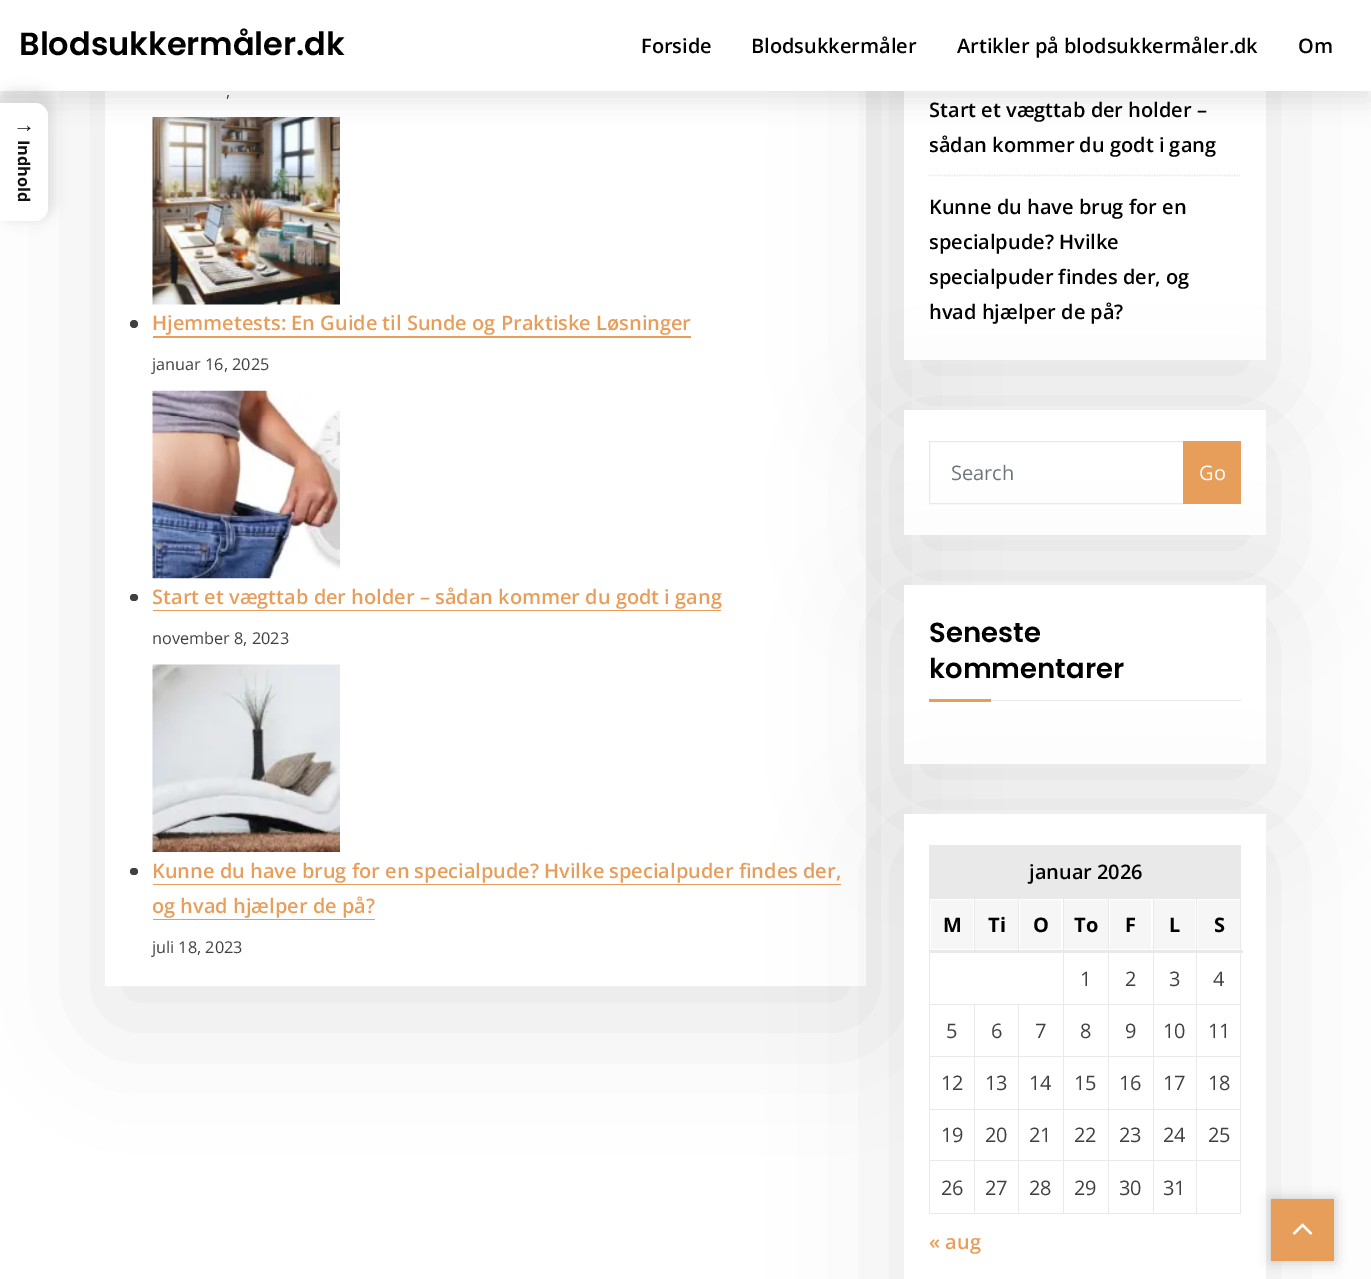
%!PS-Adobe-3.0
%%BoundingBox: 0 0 1371 1279
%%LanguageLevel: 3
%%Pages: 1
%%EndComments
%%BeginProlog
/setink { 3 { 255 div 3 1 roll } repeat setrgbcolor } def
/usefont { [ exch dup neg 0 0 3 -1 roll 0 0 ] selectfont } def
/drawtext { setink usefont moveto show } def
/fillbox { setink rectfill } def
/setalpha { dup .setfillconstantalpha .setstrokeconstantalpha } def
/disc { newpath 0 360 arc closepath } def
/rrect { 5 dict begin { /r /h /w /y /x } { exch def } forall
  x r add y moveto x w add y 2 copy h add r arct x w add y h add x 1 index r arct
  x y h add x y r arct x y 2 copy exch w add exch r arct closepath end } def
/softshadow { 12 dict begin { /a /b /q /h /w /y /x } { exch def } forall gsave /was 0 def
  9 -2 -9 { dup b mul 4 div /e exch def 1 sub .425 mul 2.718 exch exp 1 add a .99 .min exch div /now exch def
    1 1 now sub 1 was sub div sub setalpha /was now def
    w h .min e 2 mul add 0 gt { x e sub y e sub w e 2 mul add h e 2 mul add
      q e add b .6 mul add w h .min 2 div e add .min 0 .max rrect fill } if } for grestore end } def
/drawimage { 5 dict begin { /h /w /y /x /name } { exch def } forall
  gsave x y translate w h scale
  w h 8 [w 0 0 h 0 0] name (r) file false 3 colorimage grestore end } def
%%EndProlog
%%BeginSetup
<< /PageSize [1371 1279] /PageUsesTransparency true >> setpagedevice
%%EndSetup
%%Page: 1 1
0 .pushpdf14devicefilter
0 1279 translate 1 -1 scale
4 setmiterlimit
0 0 1371 1279 255 255 255 fillbox
gsave
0 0 moveto 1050 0 lineto 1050 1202 lineto 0 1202 lineto closepath 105 -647 moveto 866 -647 lineto 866 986 lineto 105 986 lineto closepath eoclip newpath
0 0 0 setink
105 -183 761 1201 0 61 0.1 softshadow
grestore
(assets/img1.rgb) 152 117 188 188 drawimage
0 0 0 setink
904 -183 362 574 0 61 0.1 softshadow
904 91 362 269 255 255 255 fillbox
0 0 0 setink
0 10 1371 91 0 12.5 0.1 softshadow
0 0 1371 91 255 255 255 fillbox
(Blodsukkermåler.dk) 19 55 /Poppins-SemiBold 32 0 0 0 drawtext
(Forside) 641 53 /OpenSans-SemiBold 20 0 0 0 drawtext
(Blodsukkermåler) 751 53 /OpenSans-SemiBold 20 0 0 0 drawtext
(Artikler på blodsukkermåler.dk) 957 53 /OpenSans-SemiBold 20 0 0 0 drawtext
(Om) 1298 53 /OpenSans-SemiBold 20 0 0 0 drawtext
-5 90 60 131 19 6 0.1 softshadow
255 255 255 setink
0 103 moveto 35 103 lineto 42 103 48 109 48 116 curveto 48 208 lineto 48 215 42 221 35 221 curveto 0 221 lineto closepath fill
(→) 13 132 /LiberationSans-Bold 22 17 17 17 drawtext
/OpenSans-Bold 16.25 usefont
gsave 18 140 translate 90 rotate 0 0 moveto (Indhold) show grestore
(,) 226 97 /OpenSans-Regular 16.25 64 64 64 drawtext
134 324 4 disc fill
(Hjemmetests: En Guide til Sunde og Praktiske Løsninger) 152 330 /OpenSans-SemiBold 20 232 158 91 drawtext
153 336 538 2 232 158 91 fillbox
(januar 16, 2025) 152 370 /OpenSans-Regular 16.25 64 64 64 drawtext
(assets/img2.rgb) 152 390 188 189 drawimage
130 594 8 7 3.5 rrect fill
(Start et vægttab der holder – sådan kommer du godt i gang) 152 604 /OpenSans-SemiBold 20 232 158 91 drawtext
153 610 568 1 232 158 91 fillbox
(november 8, 2023) 152 644 /OpenSans-Regular 16.25 64 64 64 drawtext
(assets/img3.rgb) 152 664 188 188 drawimage
130 868 8 7 3.5 rrect fill
(Kunne du have brug for en specialpude? Hvilke specialpuder findes der,) 152 878 /OpenSans-SemiBold 20 232 158 91 drawtext
153 884 688 1 232 158 91 fillbox
(og hvad hjælper de på?) 152 913 /OpenSans-SemiBold 20 232 158 91 drawtext
153 919 222 1 232 158 91 fillbox
(juli 18, 2023) 152 953 /OpenSans-Regular 16.25 64 64 64 drawtext
230 230 230 setink
1.2 setlinewidth
[1.25 1.25] 0 setdash
929 175.5 moveto 1241 175.5 lineto stroke
(Start et vægttab der holder –) 929 117 /OpenSans-SemiBold 20 0 0 0 drawtext
(sådan kommer du godt i gang) 929 152 /OpenSans-SemiBold 20 0 0 0 drawtext
(Kunne du have brug for en) 929 214 /OpenSans-SemiBold 20 0 0 0 drawtext
(specialpude? Hvilke) 929 249 /OpenSans-SemiBold 20 0 0 0 drawtext
904 441 362 125 0 61 0.1 softshadow
(specialpuder findes der, og) 929 284 /OpenSans-SemiBold 20 0 0 0 drawtext
(hvad hjælper de på?) 929 319 /OpenSans-SemiBold 20 0 0 0 drawtext
904 410 362 125 255 255 255 fillbox
0 0 0 setink
904 616 362 179 0 61 0.1 softshadow
233 233 233 setink
1 setlinewidth
[] 0 setdash
929.5 441.5 254 62 rectstroke
(Search) 951 480 /OpenSans-Regular 20 108 117 125 drawtext
1183 441 58 63 232 158 91 fillbox
(Go) 1199 480 /OpenSans-Regular 20 255 255 255 drawtext
904 585 362 179 255 255 255 fillbox
0 0 0 setink
904 845 362 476 0 61 0.1 softshadow
991 700 250 1 233 233 233 fillbox
(Seneste) 929 642 /Poppins-SemiBold 27.5 0 0 0 drawtext
(kommentarer) 929 678 /Poppins-SemiBold 27.5 0 0 0 drawtext
929 699 62 3 232 158 91 fillbox
904 814 362 465 255 255 255 fillbox
1240 845 1 369 233 233 233 fillbox
929 1213 312 1 233 233 233 fillbox
929 845 1 369 233 233 233 fillbox
930 845 310 53 233 233 233 fillbox
(januar 2026) 1029 879 /OpenSans-SemiBold 20 0 0 0 drawtext
931 900 42 49 246 246 246 fillbox
1196 898 45 1 233 233 233 fillbox
1196 1004 45 1 233 233 233 fillbox
1196 1056 45 1 233 233 233 fillbox
1196 1109 45 1 233 233 233 fillbox
1196 1160 45 1 233 233 233 fillbox
1196 1160 1 54 233 233 233 fillbox
1153 1160 45 1 233 233 233 fillbox
1196 1109 1 52 233 233 233 fillbox
1153 1109 45 1 233 233 233 fillbox
1196 1056 1 54 233 233 233 fillbox
1153 1056 45 1 233 233 233 fillbox
1196 1004 1 54 233 233 233 fillbox
1153 1004 45 1 233 233 233 fillbox
1196 951 1 54 233 233 233 fillbox
1196 898 1 55 233 233 233 fillbox
1153 898 45 1 233 233 233 fillbox
1153 1160 1 54 233 233 233 fillbox
1108 1160 46 1 233 233 233 fillbox
1153 1109 1 52 233 233 233 fillbox
1108 1109 46 1 233 233 233 fillbox
1153 1056 1 54 233 233 233 fillbox
1108 1056 46 1 233 233 233 fillbox
1153 1004 1 54 233 233 233 fillbox
1108 1004 46 1 233 233 233 fillbox
1153 951 1 54 233 233 233 fillbox
1153 898 1 55 233 233 233 fillbox
1108 898 46 1 233 233 233 fillbox
1108 1160 1 54 233 233 233 fillbox
1063 1160 46 1 233 233 233 fillbox
1108 1109 1 52 233 233 233 fillbox
1063 1109 46 1 233 233 233 fillbox
1108 1056 1 54 233 233 233 fillbox
1063 1056 46 1 233 233 233 fillbox
1108 1004 1 54 233 233 233 fillbox
1063 1004 46 1 233 233 233 fillbox
1108 951 1 54 233 233 233 fillbox
1108 898 1 55 233 233 233 fillbox
1063 898 46 1 233 233 233 fillbox
1063 1160 1 54 233 233 233 fillbox
1018 1160 46 1 233 233 233 fillbox
1063 1109 1 52 233 233 233 fillbox
1018 1109 46 1 233 233 233 fillbox
1063 1056 1 54 233 233 233 fillbox
1018 1056 46 1 233 233 233 fillbox
1063 1004 1 54 233 233 233 fillbox
1018 1004 46 1 233 233 233 fillbox
1063 951 1 54 233 233 233 fillbox
1063 898 1 55 233 233 233 fillbox
1018 898 46 1 233 233 233 fillbox
1018 898 1 55 233 233 233 fillbox
974 898 45 1 233 233 233 fillbox
974 898 1 55 233 233 233 fillbox
929 898 46 1 233 233 233 fillbox
(M) 943 932 /OpenSans-Bold 20 0 0 0 drawtext
975 900 43 49 246 246 246 fillbox
(Ti) 988 932 /OpenSans-Bold 20 0 0 0 drawtext
1020 900 41 49 246 246 246 fillbox
(O) 1033 932 /OpenSans-Bold 20 0 0 0 drawtext
1064 900 44 49 246 246 246 fillbox
(To) 1074 932 /OpenSans-Bold 20 0 0 0 drawtext
1110 900 41 49 246 246 246 fillbox
(F) 1125 932 /OpenSans-Bold 20 0 0 0 drawtext
1154 900 41 49 246 246 246 fillbox
(L) 1169 932 /OpenSans-Bold 20 0 0 0 drawtext
1198 900 42 49 246 246 246 fillbox
929 950 314 3 233 233 233 fillbox
(S) 1214 932 /OpenSans-Bold 20 0 0 0 drawtext
(1) 1080 986 /OpenSans-Regular 20 64 64 64 drawtext
(2) 1125 986 /OpenSans-Regular 20 64 64 64 drawtext
(3) 1169 986 /OpenSans-Regular 20 64 64 64 drawtext
(4) 1213 986 /OpenSans-Regular 20 64 64 64 drawtext
1018 1160 1 54 233 233 233 fillbox
974 1160 45 1 233 233 233 fillbox
1018 1109 1 52 233 233 233 fillbox
974 1109 45 1 233 233 233 fillbox
1018 1056 1 54 233 233 233 fillbox
974 1056 45 1 233 233 233 fillbox
1018 1004 1 54 233 233 233 fillbox
974 1004 45 1 233 233 233 fillbox
974 1160 1 54 233 233 233 fillbox
929 1160 46 1 233 233 233 fillbox
974 1109 1 52 233 233 233 fillbox
929 1109 46 1 233 233 233 fillbox
974 1056 1 54 233 233 233 fillbox
929 1056 46 1 233 233 233 fillbox
974 1004 1 54 233 233 233 fillbox
929 1004 46 1 233 233 233 fillbox
(5) 946 1038 /OpenSans-Regular 20 64 64 64 drawtext
(6) 991 1038 /OpenSans-Regular 20 64 64 64 drawtext
(7) 1035 1038 /OpenSans-Regular 20 64 64 64 drawtext
(8) 1080 1038 /OpenSans-Regular 20 64 64 64 drawtext
(9) 1125 1038 /OpenSans-Regular 20 64 64 64 drawtext
(10) 1163 1038 /OpenSans-Regular 20 64 64 64 drawtext
(11) 1208 1038 /OpenSans-Regular 20 64 64 64 drawtext
(12) 941 1090 /OpenSans-Regular 20 64 64 64 drawtext
(13) 985 1090 /OpenSans-Regular 20 64 64 64 drawtext
(14) 1029 1090 /OpenSans-Regular 20 64 64 64 drawtext
(15) 1074 1090 /OpenSans-Regular 20 64 64 64 drawtext
(16) 1119 1090 /OpenSans-Regular 20 64 64 64 drawtext
(17) 1163 1090 /OpenSans-Regular 20 64 64 64 drawtext
(18) 1208 1090 /OpenSans-Regular 20 64 64 64 drawtext
(19) 941 1142 /OpenSans-Regular 20 64 64 64 drawtext
(20) 985 1142 /OpenSans-Regular 20 64 64 64 drawtext
(21) 1029 1142 /OpenSans-Regular 20 64 64 64 drawtext
(22) 1074 1142 /OpenSans-Regular 20 64 64 64 drawtext
(23) 1119 1142 /OpenSans-Regular 20 64 64 64 drawtext
(24) 1163 1142 /OpenSans-Regular 20 64 64 64 drawtext
(25) 1208 1142 /OpenSans-Regular 20 64 64 64 drawtext
(26) 941 1195 /OpenSans-Regular 20 64 64 64 drawtext
(27) 985 1195 /OpenSans-Regular 20 64 64 64 drawtext
(28) 1029 1195 /OpenSans-Regular 20 64 64 64 drawtext
(29) 1074 1195 /OpenSans-Regular 20 64 64 64 drawtext
(30) 1119 1195 /OpenSans-Regular 20 64 64 64 drawtext
(31) 1163 1195 /OpenSans-Regular 20 64 64 64 drawtext
(« aug) 929 1249 /OpenSans-SemiBold 20 232 158 91 drawtext
0 0 0 setink
1271 1199 63 62 0 6 0.2 softshadow
1271 1199 63 62 232 158 91 fillbox
(assets/img4.rgb) 1292 1223 21 12 drawimage
.poppdf14devicefilter showpage
%%EOF
